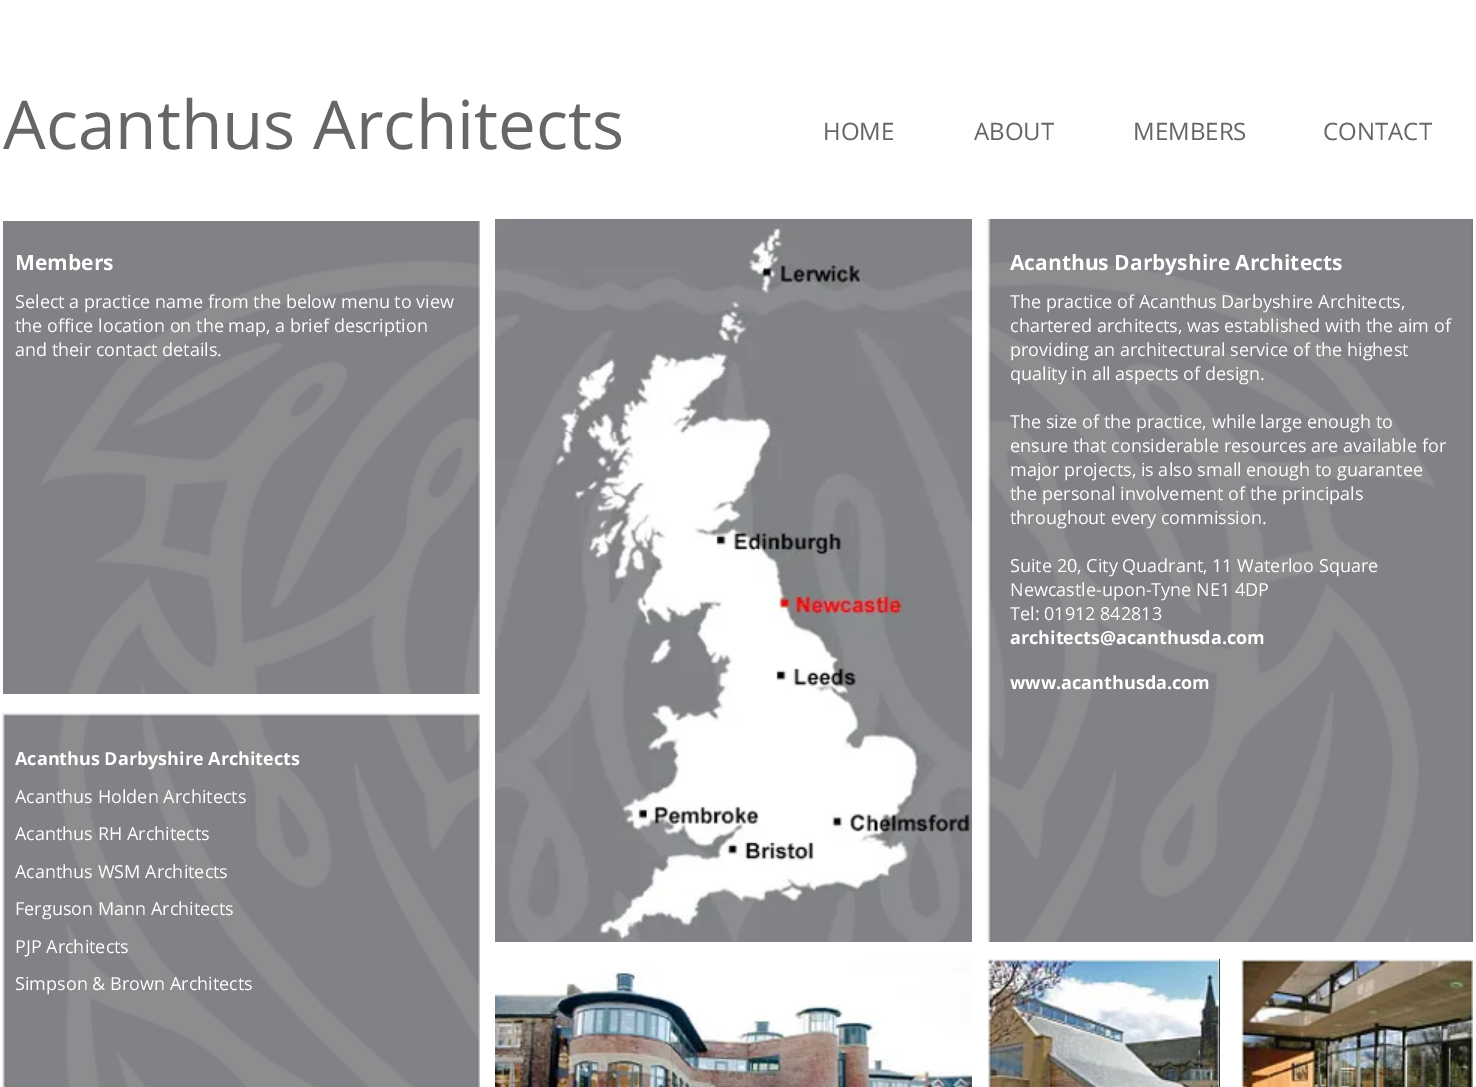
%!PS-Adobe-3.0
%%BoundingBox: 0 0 1476 1087
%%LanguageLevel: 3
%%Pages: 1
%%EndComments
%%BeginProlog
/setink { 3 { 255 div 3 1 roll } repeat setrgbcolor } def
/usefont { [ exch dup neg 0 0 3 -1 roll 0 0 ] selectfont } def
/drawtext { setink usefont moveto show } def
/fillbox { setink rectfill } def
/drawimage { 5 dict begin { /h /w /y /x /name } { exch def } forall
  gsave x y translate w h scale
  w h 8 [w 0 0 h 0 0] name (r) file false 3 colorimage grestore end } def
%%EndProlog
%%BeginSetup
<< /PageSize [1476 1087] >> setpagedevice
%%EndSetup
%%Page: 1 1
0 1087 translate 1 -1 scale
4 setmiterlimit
0 0 1476 1087 255 255 255 fillbox
(Acanthus Architects) 3 149 /OpenSans-Regular 67.5 102 102 102 drawtext
(HOME) 823 140 /OpenSans-Regular 24 102 102 102 drawtext
(ABOUT) 974 140 /OpenSans-Regular 24 102 102 102 drawtext
(MEMBERS) 1133 140 /OpenSans-Regular 24 102 102 102 drawtext
(CONTACT) 1323 140 /OpenSans-Regular 24 102 102 102 drawtext
(assets/img1.rgb) 3 221 477 473 drawimage
(assets/img2.rgb) 495 219 477 723 drawimage
(assets/img3.rgb) 987 219 486 723 drawimage
(Members) 15 270 /OpenSans-Bold 21 255 255 255 drawtext
(Select a practice name from the below menu to view) 15 308 /OpenSans-Regular 18 255 255 255 drawtext
(the office location on the map, a brief description) 15 332 /OpenSans-Regular 18 255 255 255 drawtext
(and their contact details.) 15 356 /OpenSans-Regular 18 255 255 255 drawtext
(Acanthus Darbyshire Architects) 1010 270 /OpenSans-Bold 21 255 255 255 drawtext
(The practice of Acanthus Darbyshire Architects,) 1010 308 /OpenSans-Regular 18 255 255 255 drawtext
(chartered architects, was established with the aim of) 1010 332 /OpenSans-Regular 18 255 255 255 drawtext
(providing an architectural service of the highest) 1010 356 /OpenSans-Regular 18 255 255 255 drawtext
(quality in all aspects of design.) 1010 380 /OpenSans-Regular 18 255 255 255 drawtext
(The size of the practice, while large enough to) 1010 428 /OpenSans-Regular 18 255 255 255 drawtext
(ensure that considerable resources are available for) 1010 452 /OpenSans-Regular 18 255 255 255 drawtext
(major projects, is also small enough to guarantee) 1010 476 /OpenSans-Regular 18 255 255 255 drawtext
(the personal involvement of the principals) 1010 500 /OpenSans-Regular 18 255 255 255 drawtext
(throughout every commission.) 1010 524 /OpenSans-Regular 18 255 255 255 drawtext
(Suite 20, City Quadrant, 11 Waterloo Square) 1010 572 /OpenSans-Regular 18 255 255 255 drawtext
(Newcastle-upon-Tyne NE1 4DP) 1010 596 /OpenSans-Regular 18 255 255 255 drawtext
(Tel: 01912 842813) 1010 620 /OpenSans-Regular 18 255 255 255 drawtext
(architects@acanthusda.com) 1010 644 /OpenSans-Bold 18 255 255 255 drawtext
(www.acanthusda.com) 1010 689 /OpenSans-Bold 18 255 255 255 drawtext
(assets/img4.rgb) 1 712 479 375 drawimage
(Acanthus Darbyshire Architects) 15 765 /OpenSans-Bold 18 255 255 255 drawtext
(Acanthus Holden Architects) 15 803 /OpenSans-Regular 18 255 255 255 drawtext
(Acanthus RH Architects) 15 840 /OpenSans-Regular 18 255 255 255 drawtext
(Acanthus WSM Architects) 15 878 /OpenSans-Regular 18 255 255 255 drawtext
(Ferguson Mann Architects) 15 915 /OpenSans-Regular 18 255 255 255 drawtext
(PJP Architects) 15 953 /OpenSans-Regular 18 255 255 255 drawtext
(Simpson & Brown Architects) 15 990 /OpenSans-Regular 18 255 255 255 drawtext
(assets/img5.rgb) 495 957 477 130 drawimage
1219 959 1 128 0 0 0 fillbox
(assets/img6.rgb) 987 958 233 129 drawimage
(assets/img7.rgb) 1240 959 233 128 drawimage
showpage
%%EOF
